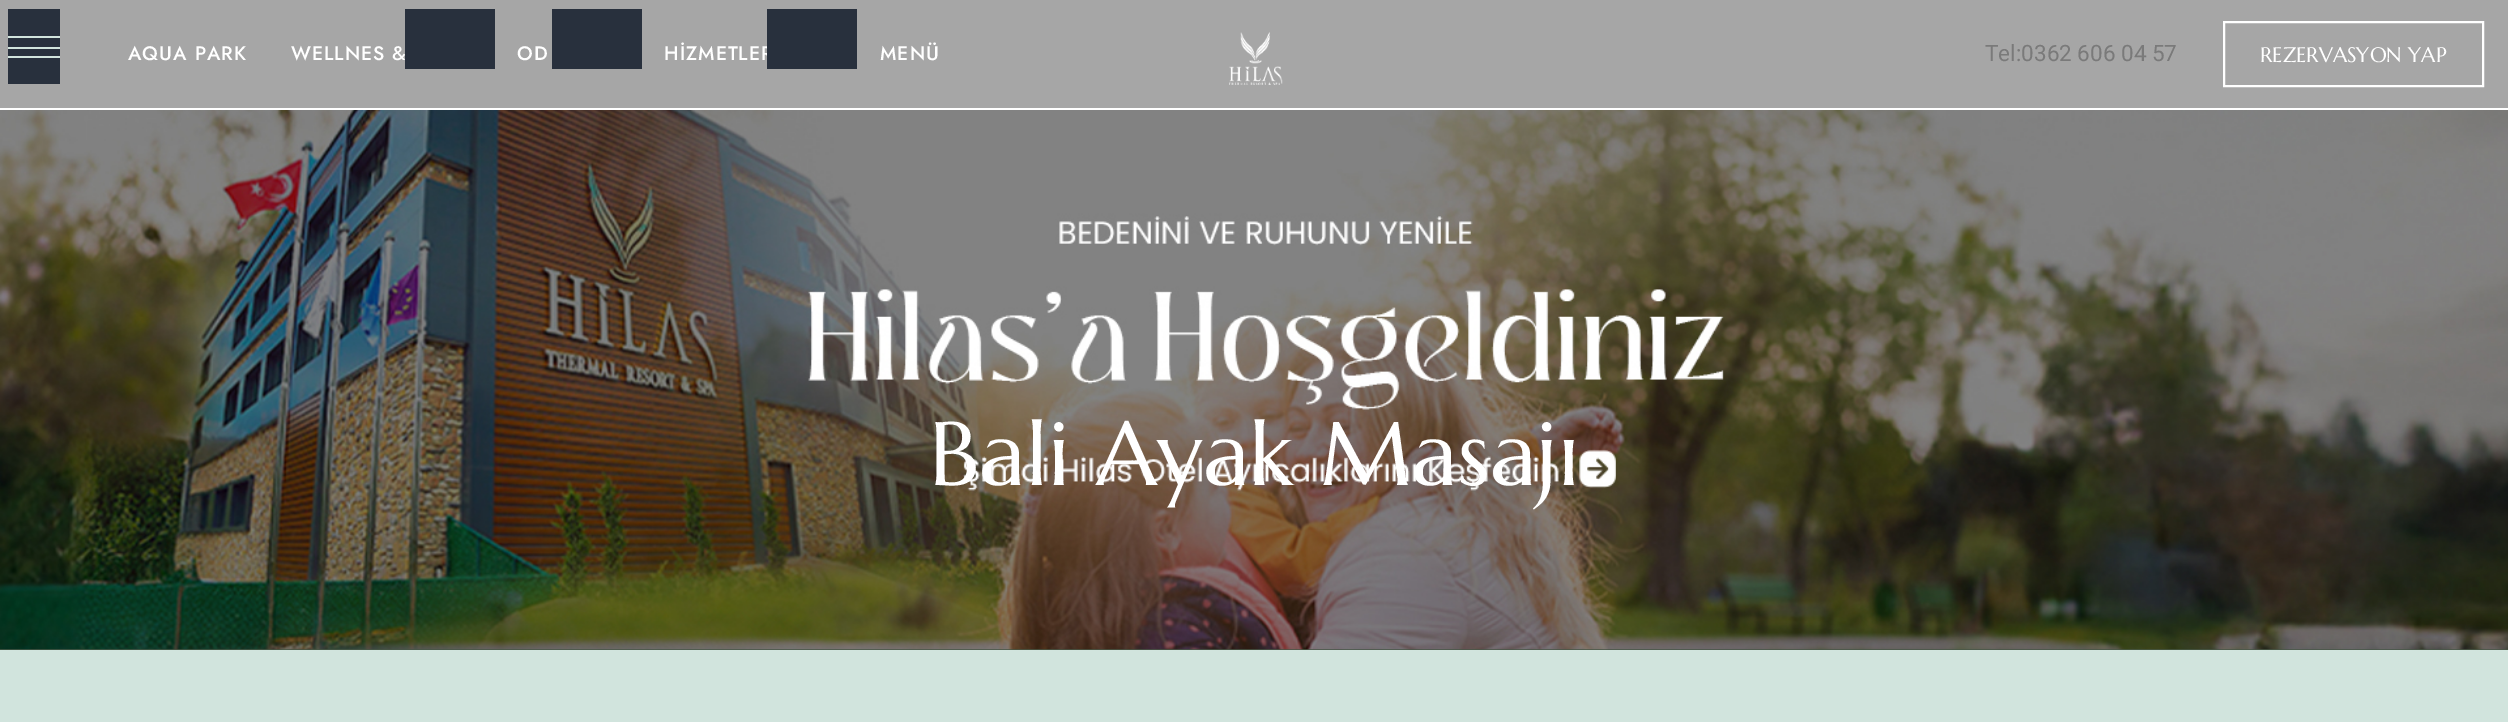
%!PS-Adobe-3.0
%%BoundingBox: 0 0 2508 722
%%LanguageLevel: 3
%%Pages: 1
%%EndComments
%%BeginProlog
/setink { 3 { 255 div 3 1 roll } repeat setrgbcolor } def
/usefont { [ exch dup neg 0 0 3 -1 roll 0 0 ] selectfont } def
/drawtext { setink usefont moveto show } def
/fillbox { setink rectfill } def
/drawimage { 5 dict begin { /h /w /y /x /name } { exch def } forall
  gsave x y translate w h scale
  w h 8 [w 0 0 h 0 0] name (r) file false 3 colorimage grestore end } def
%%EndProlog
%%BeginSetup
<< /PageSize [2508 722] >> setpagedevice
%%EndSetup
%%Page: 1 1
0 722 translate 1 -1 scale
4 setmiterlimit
0 0 2508 722 209 228 221 fillbox
0 108 2508 2 255 255 255 fillbox
0 0 2508 108 166 166 166 fillbox
8 9 52 75 40 48 61 fillbox
8 36 52 2 209 228 221 fillbox
8 56 52 2 209 228 221 fillbox
8 47 52 2 209 228 221 fillbox
/Jost-Medium 19.5 usefont
255 255 255 setink
128 60 moveto 1 0 (AQUA PARK) ashow
291 60 moveto 1 0 (WELLNES &) ashow
405 9 90 60 40 48 61 fillbox
255 255 255 setink
517 60 moveto 1 0 (OD) ashow
552 9 90 60 40 48 61 fillbox
255 255 255 setink
664 60 moveto 1 0 (HİZMETLER) ashow
767 9 90 60 40 48 61 fillbox
255 255 255 setink
880 60 moveto 1 0 (MENÜ) ashow
(assets/img1.rgb) 1229 32 54 53 drawimage
(Tel:0362 606 04 57) 1985 61 /Roboto-Regular 22.5 122 122 122 drawtext
255 255 255 setink
2 setlinewidth
2224 22 259 64 rectstroke
(REZERVASYON YAP) 2260 62 /Marcellus-Regular 21 255 255 255 drawtext
0 649 2508 1 71 87 70 fillbox
(assets/img2.rgb) 0 110 2508 540 drawimage
(Bali Ayak Masajı) 929 485 /Marcellus-Regular 90 255 255 255 drawtext
showpage
%%EOF
